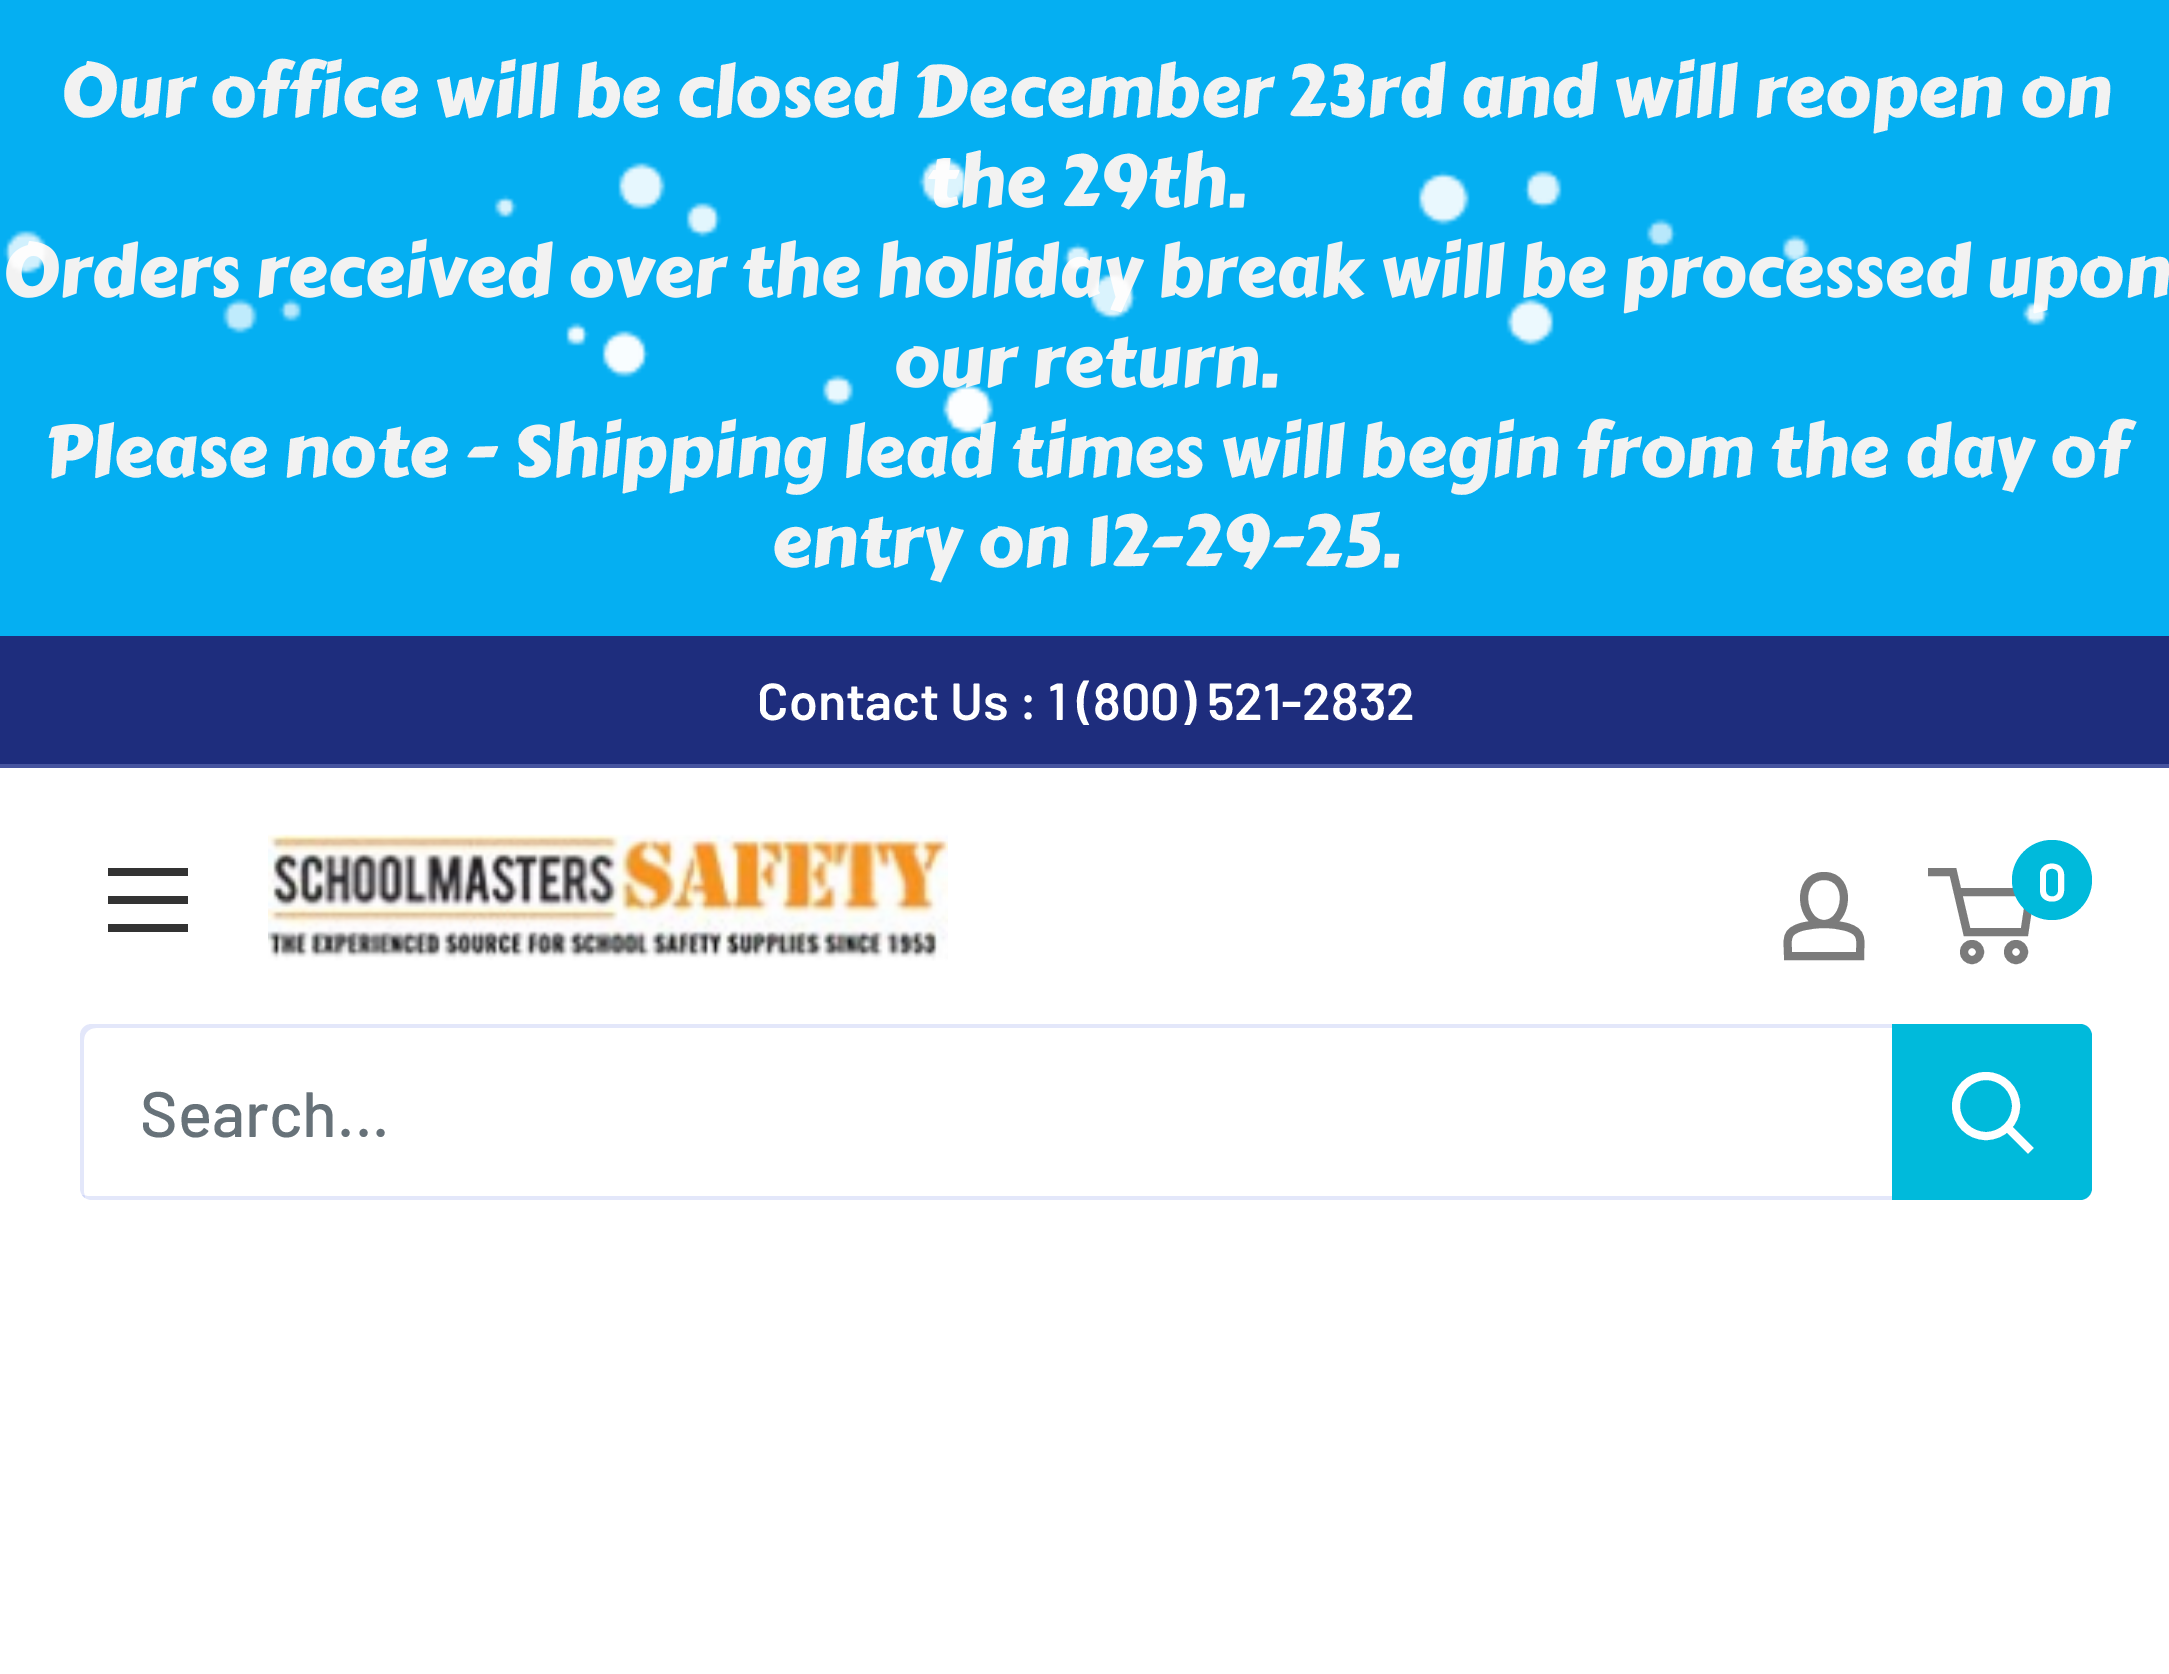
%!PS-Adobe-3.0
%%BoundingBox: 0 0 2169 1674
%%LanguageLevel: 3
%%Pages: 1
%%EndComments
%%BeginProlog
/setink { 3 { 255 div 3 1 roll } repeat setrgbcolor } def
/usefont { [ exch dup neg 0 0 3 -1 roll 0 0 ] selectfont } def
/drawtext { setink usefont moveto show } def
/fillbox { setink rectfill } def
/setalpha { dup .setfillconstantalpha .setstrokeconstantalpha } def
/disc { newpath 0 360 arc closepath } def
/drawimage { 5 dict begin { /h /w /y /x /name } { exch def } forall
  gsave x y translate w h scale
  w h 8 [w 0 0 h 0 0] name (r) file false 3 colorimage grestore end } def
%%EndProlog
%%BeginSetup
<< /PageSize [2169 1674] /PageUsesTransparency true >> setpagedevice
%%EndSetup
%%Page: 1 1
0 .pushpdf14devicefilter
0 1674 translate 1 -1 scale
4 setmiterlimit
0 0 2169 1674 30 45 125 fillbox
0 0 2169 636 5 175 242 fillbox
(Our office will be closed December 23rd and will reopen on) 60 116 /CarterOne-Regular 72 242 242 242 drawtext
(he 29th.) 958 206 /CarterOne-Regular 72 242 242 242 drawtext
(Orders received over the holiday break will be processed upon) 2 296 /CarterOne-Regular 72 242 242 242 drawtext
(our return.) 893 386 /CarterOne-Regular 72 242 242 242 drawtext
(Please note - Shipping lead times will begin from the day of) 44 476 /CarterOne-Regular 72 242 242 242 drawtext
(entry on 12-29-25.) 771 566 /CarterOne-Regular 72 242 242 242 drawtext
(assets/img1.rgb) 3 158 2047 276 drawimage
0 764 2169 4 70 84 159 fillbox
(Contact Us : 1 \(800\) 521-2832) 757 720 /Barlow-SemiBold 52 255 255 255 drawtext
0 768 2169 906 255 255 255 fillbox
51 51 51 setink
108 924 moveto 188 924 lineto 188 932 lineto 108 932 lineto closepath 108 868 moveto 188 868 lineto 188 876 lineto 108 876 lineto closepath 108 896 moveto 188 896 lineto 188 904 lineto 108 904 lineto closepath eofill
(assets/img2.rgb) 268 834 680 127 drawimage
123 123 123 setink
8 setlinewidth
1824 924 moveto 1831.5 924 1839 925 1846.5 927 curveto 1864 932 1860 940.5 1860 956 curveto 1788 956 lineto 1788 939.5 1784 931.5 1803 926.5 curveto 1810 925 1817 924 1824 924 curveto closepath 1824 924 moveto 1800.5 924 1794.5 876 1824 876 curveto 1853.5 876 1847.5 924 1824 924 curveto closepath stroke
1972 952 8 disc stroke
2016 952 8 disc stroke
1957 892 moveto 2030.5 892 lineto 2024.5 932 lineto 1967 932 lineto 1953 872 lineto 1928 872 lineto stroke
0 186 219 setink
2052 880 40 disc fill
(0) 2037 901 /Barlow-SemiBold 53 255 255 255 drawtext
227 231 250 setink
82 1195 moveto 84 1198 88 1200 92 1200 curveto 2080 1200 lineto 2087 1200 2092 1195 2092 1188 curveto 2092 1036 lineto 2092 1032 2090 1028 2087 1026 curveto 2087 1028 2088 1030 2088 1032 curveto 2088 1184 lineto 2088 1191 2083 1196 2076 1196 curveto 88 1196 lineto 86 1196 84 1195 82 1195 curveto closepath fill
0.3 setalpha
163 175 239 setink
96 1028 moveto 2084 1028 lineto 2086 1028 2088 1029 2090 1029 curveto 2088 1026 2084 1024 2080 1024 curveto 92 1024 lineto 85 1024 80 1029 80 1036 curveto 80 1188 lineto 80 1192 82 1196 85 1198 curveto 85 1196 84 1194 84 1192 curveto 84 1040 lineto 84 1033 89 1028 96 1028 curveto closepath fill
1 setalpha
(Search...) 140 1137 /Barlow-Medium 64 103 114 121 drawtext
0 186 219 setink
1892 1024 moveto 2080 1024 lineto 2086.5 1024 2092 1029.5 2092 1036 curveto 2092 1188 lineto 2092 1194.5 2086.5 1200 2080 1200 curveto 1892 1200 lineto closepath fill
255 255 255 setink
2 setlinecap
2028 1148 moveto 2008 1128 lineto stroke
0 setlinecap
1986 1106 30 disc stroke
.poppdf14devicefilter showpage
%%EOF
